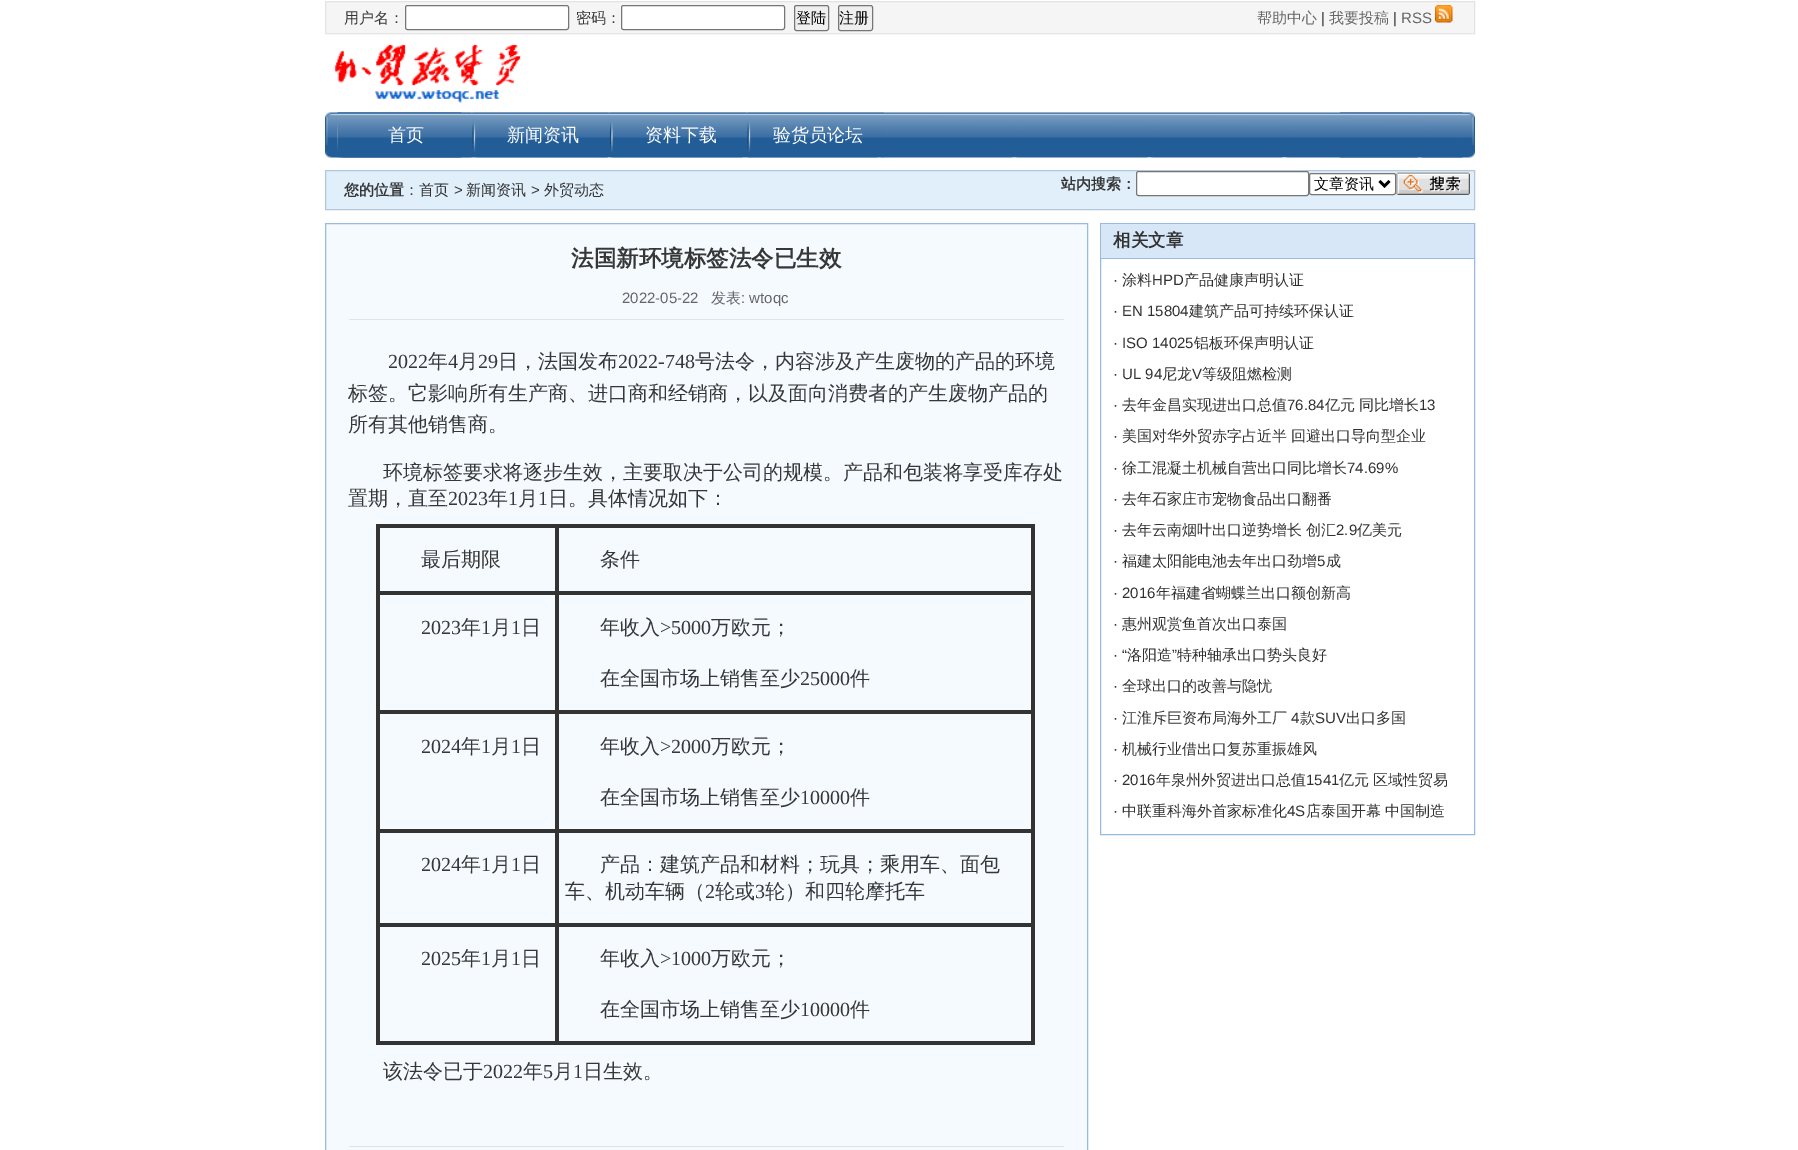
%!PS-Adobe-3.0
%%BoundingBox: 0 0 1798 1150
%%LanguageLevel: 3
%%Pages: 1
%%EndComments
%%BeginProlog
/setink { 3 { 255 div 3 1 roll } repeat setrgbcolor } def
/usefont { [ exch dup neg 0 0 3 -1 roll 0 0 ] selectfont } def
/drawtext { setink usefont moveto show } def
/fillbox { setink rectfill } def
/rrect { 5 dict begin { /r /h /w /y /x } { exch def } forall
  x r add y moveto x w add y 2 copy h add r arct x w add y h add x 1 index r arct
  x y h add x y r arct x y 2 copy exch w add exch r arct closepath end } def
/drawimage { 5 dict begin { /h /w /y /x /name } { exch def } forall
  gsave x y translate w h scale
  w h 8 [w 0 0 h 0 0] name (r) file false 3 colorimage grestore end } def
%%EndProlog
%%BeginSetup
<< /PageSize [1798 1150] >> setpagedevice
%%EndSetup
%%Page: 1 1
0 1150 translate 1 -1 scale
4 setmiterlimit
0 0 1798 1150 255 255 255 fillbox
245 245 245 setink
325.5 1.5 moveto 1474.5 1.5 lineto 1474.5 33.5 lineto 325.5 33.5 lineto closepath gsave fill grestore
227 227 227 setink
stroke
(用户名：) 344 23 /WenQuanYiZenHei-Medium 15 54 55 55 drawtext
255 255 255 setink
405.5 5.5 163 24 2 rrect gsave fill grestore
118 118 118 setink
stroke
(密码：) 576 23 /WenQuanYiZenHei-Medium 15 54 55 55 drawtext
255 255 255 setink
621.5 5.5 163 24 2 rrect gsave fill grestore
118 118 118 setink
stroke
239 239 239 setink
794.5 5.5 34 25 2 rrect gsave fill grestore
118 118 118 setink
stroke
(登陆) 796 23 /WenQuanYiZenHei-Medium 15 0 0 0 drawtext
239 239 239 setink
838.5 5.5 34 25 2 rrect gsave fill grestore
118 118 118 setink
stroke
(注册) 839 23 /WenQuanYiZenHei-Medium 15 0 0 0 drawtext
(帮助中心) 1257 23 /WenQuanYiZenHei-Medium 15 102 102 102 drawtext
(|) 1321 23 /LiberationSans-Regular 15 54 55 55 drawtext
(我要投稿) 1329 23 /WenQuanYiZenHei-Medium 15 102 102 102 drawtext
(|) 1393 23 /LiberationSans-Regular 15 54 55 55 drawtext
(RSS) 1401 23 /LiberationSans-Regular 15 102 102 102 drawtext
(assets/img1.rgb) 1435 5 18 18 drawimage
(assets/img2.rgb) 334 44 187 59 drawimage
(assets/img3.rgb) 325 112 137 46 drawimage
(assets/img4.rgb) 1340 112 135 46 drawimage
(assets/img5.rgb) 337 112 1126 46 drawimage
(assets/img6.rgb) 337 112 135 46 drawimage
(首页) 388 141 /WenQuanYiZenHei-Medium 18 255 255 255 drawtext
(assets/img7.rgb) 472 112 137 46 drawimage
(新闻资讯) 507 141 /WenQuanYiZenHei-Medium 18 255 255 255 drawtext
(assets/img8.rgb) 610 112 137 46 drawimage
(资料下载) 645 141 /WenQuanYiZenHei-Medium 18 255 255 255 drawtext
(assets/img9.rgb) 747 112 137 46 drawimage
(验货员论坛) 773 141 /WenQuanYiZenHei-Medium 18 255 255 255 drawtext
225 239 251 setink
325.5 170.5 moveto 1474.5 170.5 lineto 1474.5 209.5 lineto 325.5 209.5 lineto closepath gsave fill grestore
176 199 221 setink
stroke
(您的位置) 344 195 /WenQuanYiZenHei-Bold 15 54 55 55 drawtext
(：) 404 195 /WenQuanYiZenHei-Medium 15 54 55 55 drawtext
(首页) 419 195 /WenQuanYiZenHei-Medium 15 49 49 49 drawtext
(>) 454 195 /LiberationSans-Regular 15 54 55 55 drawtext
(新闻资讯) 466 195 /WenQuanYiZenHei-Medium 15 49 49 49 drawtext
(>) 531 195 /LiberationSans-Regular 15 54 55 55 drawtext
(外贸动态) 544 195 /WenQuanYiZenHei-Medium 15 49 49 49 drawtext
(站内搜索：) 1061 189 /WenQuanYiZenHei-Bold 15 54 55 55 drawtext
255 255 255 setink
1136.5 171.5 172 24 2 rrect gsave fill grestore
118 118 118 setink
stroke
255 255 255 setink
1309.5 173.5 86 21 2 rrect gsave fill grestore
118 118 118 setink
stroke
0 0 0 setink
2.5 setlinewidth
1379.5 181 moveto 1384.5 186 lineto 1389.5 181 lineto stroke
(文章资讯) 1314 189 /WenQuanYiZenHei-Medium 15 0 0 0 drawtext
(assets/img10.rgb) 1396 172 74 23 drawimage
245 250 255 setink
325.5 223.5 moveto 1087.5 223.5 lineto 1087.5 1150.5 lineto 325.5 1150.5 lineto closepath gsave fill grestore
153 187 221 setink
1 setlinewidth
stroke
(法国新环境标签法令已生效) 571 266 /WenQuanYiZenHei-Bold 22.5 54 55 55 drawtext
349 319 715 1 225 228 230 fillbox
(2022-05-22) 622 303 /LiberationSans-Regular 15 102 102 102 drawtext
(发表) 711 303 /WenQuanYiZenHei-Medium 15 102 102 102 drawtext
(: wtoqc) 741 303 /LiberationSans-Regular 15 102 102 102 drawtext
(2022) 388 368 /LiberationSerif-Regular 20 54 55 55 drawtext
(年) 428 368 /WenQuanYiZenHei-Medium 20 54 55 55 drawtext
(4) 448 368 /LiberationSerif-Regular 20 54 55 55 drawtext
(月) 458 368 /WenQuanYiZenHei-Medium 20 54 55 55 drawtext
(29) 478 368 /LiberationSerif-Regular 20 54 55 55 drawtext
(日，法国发布) 498 368 /WenQuanYiZenHei-Medium 20 54 55 55 drawtext
(2022-748) 618 368 /LiberationSerif-Regular 20 54 55 55 drawtext
(号法令，内容涉及产生废物的产品的环境) 695 368 /WenQuanYiZenHei-Medium 20 54 55 55 drawtext
(标签。它影响所有生产商、进口商和经销商，以及面向消费者的产生废物产品的) 348 400 /WenQuanYiZenHei-Medium 20 54 55 55 drawtext
(所有其他销售商。) 348 431 /WenQuanYiZenHei-Medium 20 54 55 55 drawtext
(环境标签要求将逐步生效，主要取决于公司的规模。产品和包装将享受库存处) 383 479 /WenQuanYiZenHei-Medium 20 54 55 55 drawtext
(置期，直至) 348 505 /WenQuanYiZenHei-Medium 20 54 55 55 drawtext
(2023) 448 505 /LiberationSerif-Regular 20 54 55 55 drawtext
(年) 488 505 /WenQuanYiZenHei-Medium 20 54 55 55 drawtext
(1) 508 505 /LiberationSerif-Regular 20 54 55 55 drawtext
(月) 518 505 /WenQuanYiZenHei-Medium 20 54 55 55 drawtext
(1) 538 505 /LiberationSerif-Regular 20 54 55 55 drawtext
(日。具体情况如下：) 548 505 /WenQuanYiZenHei-Medium 20 54 55 55 drawtext
555 524 480 4 51 51 51 fillbox
555 591 480 4 51 51 51 fillbox
555 710 480 4 51 51 51 fillbox
555 829 480 4 51 51 51 fillbox
555 923 480 4 51 51 51 fillbox
1031 923 4 122 51 51 51 fillbox
555 1041 480 4 51 51 51 fillbox
555 923 4 122 51 51 51 fillbox
376 923 183 4 51 51 51 fillbox
555 829 4 97 51 51 51 fillbox
376 829 183 4 51 51 51 fillbox
555 710 4 123 51 51 51 fillbox
376 710 183 4 51 51 51 fillbox
555 591 4 123 51 51 51 fillbox
376 591 183 4 51 51 51 fillbox
555 524 4 71 51 51 51 fillbox
376 524 183 4 51 51 51 fillbox
376 1041 183 4 51 51 51 fillbox
376 923 4 122 51 51 51 fillbox
376 829 4 97 51 51 51 fillbox
376 710 4 123 51 51 51 fillbox
376 591 4 123 51 51 51 fillbox
376 524 4 71 51 51 51 fillbox
(最后期限) 421 566 /WenQuanYiZenHei-Medium 20 54 55 55 drawtext
1031 829 4 97 51 51 51 fillbox
1031 710 4 123 51 51 51 fillbox
1031 591 4 123 51 51 51 fillbox
1031 524 4 71 51 51 51 fillbox
(条件) 600 566 /WenQuanYiZenHei-Medium 20 54 55 55 drawtext
(2023) 421 634 /LiberationSerif-Regular 20 54 55 55 drawtext
(年) 461 634 /WenQuanYiZenHei-Medium 20 54 55 55 drawtext
(1) 481 634 /LiberationSerif-Regular 20 54 55 55 drawtext
(月) 491 634 /WenQuanYiZenHei-Medium 20 54 55 55 drawtext
(1) 511 634 /LiberationSerif-Regular 20 54 55 55 drawtext
(日) 521 634 /WenQuanYiZenHei-Medium 20 54 55 55 drawtext
(年收入) 600 634 /WenQuanYiZenHei-Medium 20 54 55 55 drawtext
(>5000) 660 634 /LiberationSerif-Regular 20 54 55 55 drawtext
(万欧元；) 711 634 /WenQuanYiZenHei-Medium 20 54 55 55 drawtext
(在全国市场上销售至少) 600 685 /WenQuanYiZenHei-Medium 20 54 55 55 drawtext
(25000) 800 685 /LiberationSerif-Regular 20 54 55 55 drawtext
(件) 850 685 /WenQuanYiZenHei-Medium 20 54 55 55 drawtext
(2024) 421 753 /LiberationSerif-Regular 20 54 55 55 drawtext
(年) 461 753 /WenQuanYiZenHei-Medium 20 54 55 55 drawtext
(1) 481 753 /LiberationSerif-Regular 20 54 55 55 drawtext
(月) 491 753 /WenQuanYiZenHei-Medium 20 54 55 55 drawtext
(1) 511 753 /LiberationSerif-Regular 20 54 55 55 drawtext
(日) 521 753 /WenQuanYiZenHei-Medium 20 54 55 55 drawtext
(年收入) 600 753 /WenQuanYiZenHei-Medium 20 54 55 55 drawtext
(>2000) 660 753 /LiberationSerif-Regular 20 54 55 55 drawtext
(万欧元；) 711 753 /WenQuanYiZenHei-Medium 20 54 55 55 drawtext
(在全国市场上销售至少) 600 804 /WenQuanYiZenHei-Medium 20 54 55 55 drawtext
(10000) 800 804 /LiberationSerif-Regular 20 54 55 55 drawtext
(件) 850 804 /WenQuanYiZenHei-Medium 20 54 55 55 drawtext
(2024) 421 871 /LiberationSerif-Regular 20 54 55 55 drawtext
(年) 461 871 /WenQuanYiZenHei-Medium 20 54 55 55 drawtext
(1) 481 871 /LiberationSerif-Regular 20 54 55 55 drawtext
(月) 491 871 /WenQuanYiZenHei-Medium 20 54 55 55 drawtext
(1) 511 871 /LiberationSerif-Regular 20 54 55 55 drawtext
(日) 521 871 /WenQuanYiZenHei-Medium 20 54 55 55 drawtext
(产品：建筑产品和材料；玩具；乘用车、面包) 600 871 /WenQuanYiZenHei-Medium 20 54 55 55 drawtext
(车、机动车辆（) 565 898 /WenQuanYiZenHei-Medium 20 54 55 55 drawtext
(2) 705 898 /LiberationSerif-Regular 20 54 55 55 drawtext
(轮或) 715 898 /WenQuanYiZenHei-Medium 20 54 55 55 drawtext
(3) 755 898 /LiberationSerif-Regular 20 54 55 55 drawtext
(轮）和四轮摩托车) 765 898 /WenQuanYiZenHei-Medium 20 54 55 55 drawtext
(2025) 421 965 /LiberationSerif-Regular 20 54 55 55 drawtext
(年) 461 965 /WenQuanYiZenHei-Medium 20 54 55 55 drawtext
(1) 481 965 /LiberationSerif-Regular 20 54 55 55 drawtext
(月) 491 965 /WenQuanYiZenHei-Medium 20 54 55 55 drawtext
(1) 511 965 /LiberationSerif-Regular 20 54 55 55 drawtext
(日) 521 965 /WenQuanYiZenHei-Medium 20 54 55 55 drawtext
(年收入) 600 965 /WenQuanYiZenHei-Medium 20 54 55 55 drawtext
(>1000) 660 965 /LiberationSerif-Regular 20 54 55 55 drawtext
(万欧元；) 711 965 /WenQuanYiZenHei-Medium 20 54 55 55 drawtext
(在全国市场上销售至少) 600 1016 /WenQuanYiZenHei-Medium 20 54 55 55 drawtext
(10000) 800 1016 /LiberationSerif-Regular 20 54 55 55 drawtext
(件) 850 1016 /WenQuanYiZenHei-Medium 20 54 55 55 drawtext
(该法令已于) 383 1078 /WenQuanYiZenHei-Medium 20 54 55 55 drawtext
(2022) 483 1078 /LiberationSerif-Regular 20 54 55 55 drawtext
(年) 523 1078 /WenQuanYiZenHei-Medium 20 54 55 55 drawtext
(5) 543 1078 /LiberationSerif-Regular 20 54 55 55 drawtext
(月) 553 1078 /WenQuanYiZenHei-Medium 20 54 55 55 drawtext
(1) 573 1078 /LiberationSerif-Regular 20 54 55 55 drawtext
(日生效。) 583 1078 /WenQuanYiZenHei-Medium 20 54 55 55 drawtext
349 1146 715 1 225 228 230 fillbox
153 187 221 setink
1100.5 223.5 374 611 rectstroke
1101 224 373 34 215 231 247 fillbox
1101 258 373 1 153 187 221 fillbox
(相关文章) 1113 246 /WenQuanYiZenHei-Bold 17.5 49 49 49 drawtext
(·) 1113 285 /LiberationSans-Regular 15 54 55 55 drawtext
(涂料) 1122 285 /WenQuanYiZenHei-Medium 15 49 49 49 drawtext
(HPD) 1152 285 /LiberationSans-Regular 15 49 49 49 drawtext
(产品健康声明认证) 1184 285 /WenQuanYiZenHei-Medium 15 49 49 49 drawtext
(·) 1113 316 /LiberationSans-Regular 15 54 55 55 drawtext
(EN 15804) 1122 316 /LiberationSans-Regular 15 49 49 49 drawtext
(建筑产品可持续环保认证) 1189 316 /WenQuanYiZenHei-Medium 15 49 49 49 drawtext
(·) 1113 348 /LiberationSans-Regular 15 54 55 55 drawtext
(ISO 14025) 1122 348 /LiberationSans-Regular 15 49 49 49 drawtext
(铝板环保声明认证) 1194 348 /WenQuanYiZenHei-Medium 15 49 49 49 drawtext
(·) 1113 379 /LiberationSans-Regular 15 54 55 55 drawtext
(UL 94) 1122 379 /LiberationSans-Regular 15 49 49 49 drawtext
(尼龙) 1162 379 /WenQuanYiZenHei-Medium 15 49 49 49 drawtext
(V) 1192 379 /LiberationSans-Regular 15 49 49 49 drawtext
(等级阻燃检测) 1202 379 /WenQuanYiZenHei-Medium 15 49 49 49 drawtext
(·) 1113 410 /LiberationSans-Regular 15 54 55 55 drawtext
(去年金昌实现进出口总值) 1122 410 /WenQuanYiZenHei-Medium 15 49 49 49 drawtext
(76.84) 1287 410 /LiberationSans-Regular 15 49 49 49 drawtext
(亿元 同比增长) 1325 410 /WenQuanYiZenHei-Medium 15 49 49 49 drawtext
(13) 1419 410 /LiberationSans-Regular 15 49 49 49 drawtext
(·) 1113 441 /LiberationSans-Regular 15 54 55 55 drawtext
(美国对华外贸赤字占近半 回避出口导向型企业) 1122 441 /WenQuanYiZenHei-Medium 15 49 49 49 drawtext
(·) 1113 473 /LiberationSans-Regular 15 54 55 55 drawtext
(徐工混凝土机械自营出口同比增长) 1122 473 /WenQuanYiZenHei-Medium 15 49 49 49 drawtext
(74.69%) 1347 473 /LiberationSans-Regular 15 49 49 49 drawtext
(·) 1113 504 /LiberationSans-Regular 15 54 55 55 drawtext
(去年石家庄市宠物食品出口翻番) 1122 504 /WenQuanYiZenHei-Medium 15 49 49 49 drawtext
(·) 1113 535 /LiberationSans-Regular 15 54 55 55 drawtext
(去年云南烟叶出口逆势增长 创汇) 1122 535 /WenQuanYiZenHei-Medium 15 49 49 49 drawtext
(2.9) 1336 535 /LiberationSans-Regular 15 49 49 49 drawtext
(亿美元) 1357 535 /WenQuanYiZenHei-Medium 15 49 49 49 drawtext
(·) 1113 566 /LiberationSans-Regular 15 54 55 55 drawtext
(福建太阳能电池去年出口劲增) 1122 566 /WenQuanYiZenHei-Medium 15 49 49 49 drawtext
(5) 1317 566 /LiberationSans-Regular 15 49 49 49 drawtext
(成) 1326 566 /WenQuanYiZenHei-Medium 15 49 49 49 drawtext
(·) 1113 598 /LiberationSans-Regular 15 54 55 55 drawtext
(2016) 1122 598 /LiberationSans-Regular 15 49 49 49 drawtext
(年福建省蝴蝶兰出口额创新高) 1156 598 /WenQuanYiZenHei-Medium 15 49 49 49 drawtext
(·) 1113 629 /LiberationSans-Regular 15 54 55 55 drawtext
(惠州观赏鱼首次出口泰国) 1122 629 /WenQuanYiZenHei-Medium 15 49 49 49 drawtext
(“) 1122 660 /LiberationSans-Regular 15 49 49 49 drawtext
(洛阳造) 1127 660 /WenQuanYiZenHei-Medium 15 49 49 49 drawtext
(”) 1172 660 /LiberationSans-Regular 15 49 49 49 drawtext
(特种轴承出口势头良好) 1177 660 /WenQuanYiZenHei-Medium 15 49 49 49 drawtext
(·) 1113 660 /LiberationSans-Regular 15 54 55 55 drawtext
(·) 1113 691 /LiberationSans-Regular 15 54 55 55 drawtext
(全球出口的改善与隐忧) 1122 691 /WenQuanYiZenHei-Medium 15 49 49 49 drawtext
(·) 1113 723 /LiberationSans-Regular 15 54 55 55 drawtext
(江淮斥巨资布局海外工厂) 1122 723 /WenQuanYiZenHei-Medium 15 49 49 49 drawtext
(4) 1291 723 /LiberationSans-Regular 15 49 49 49 drawtext
(款) 1300 723 /WenQuanYiZenHei-Medium 15 49 49 49 drawtext
(SUV) 1315 723 /LiberationSans-Regular 15 49 49 49 drawtext
(出口多国) 1346 723 /WenQuanYiZenHei-Medium 15 49 49 49 drawtext
(·) 1113 754 /LiberationSans-Regular 15 54 55 55 drawtext
(机械行业借出口复苏重振雄风) 1122 754 /WenQuanYiZenHei-Medium 15 49 49 49 drawtext
(·) 1113 785 /LiberationSans-Regular 15 54 55 55 drawtext
(2016) 1122 785 /LiberationSans-Regular 15 49 49 49 drawtext
(年泉州外贸进出口总值) 1156 785 /WenQuanYiZenHei-Medium 15 49 49 49 drawtext
(1541) 1306 785 /LiberationSans-Regular 15 49 49 49 drawtext
(亿元 区域性贸易) 1339 785 /WenQuanYiZenHei-Medium 15 49 49 49 drawtext
(·) 1113 816 /LiberationSans-Regular 15 54 55 55 drawtext
(中联重科海外首家标准化) 1122 816 /WenQuanYiZenHei-Medium 15 49 49 49 drawtext
(4S) 1287 816 /LiberationSans-Regular 15 49 49 49 drawtext
(店泰国开幕 中国制造) 1306 816 /WenQuanYiZenHei-Medium 15 49 49 49 drawtext
showpage
%%EOF
